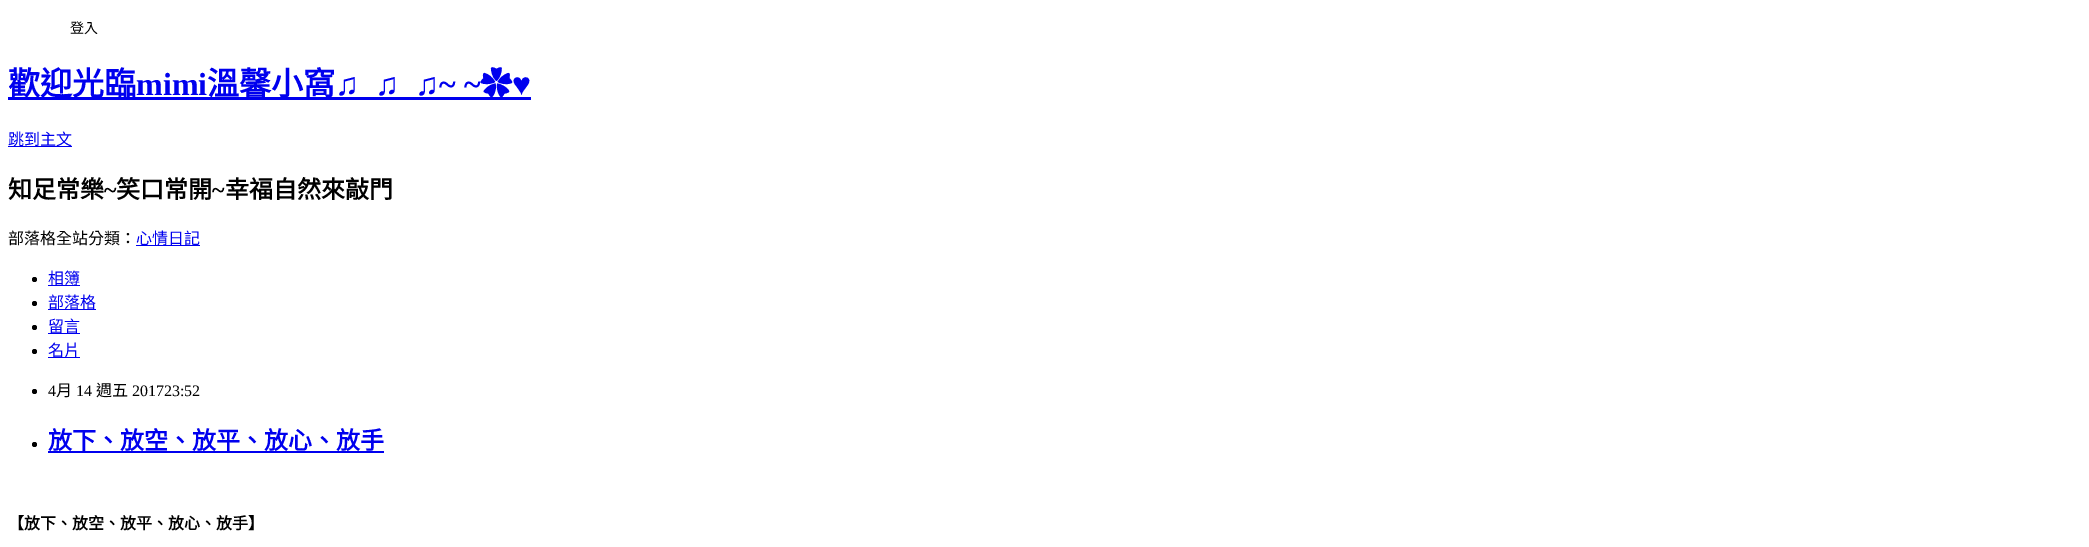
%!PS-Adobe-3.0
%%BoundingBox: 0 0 2089 547
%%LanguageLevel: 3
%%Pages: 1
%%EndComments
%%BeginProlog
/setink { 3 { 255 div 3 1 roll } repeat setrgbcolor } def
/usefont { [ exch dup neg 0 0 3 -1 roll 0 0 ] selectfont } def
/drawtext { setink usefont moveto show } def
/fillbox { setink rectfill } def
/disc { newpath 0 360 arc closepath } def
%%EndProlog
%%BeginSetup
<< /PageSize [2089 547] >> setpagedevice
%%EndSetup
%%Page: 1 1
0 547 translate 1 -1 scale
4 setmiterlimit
0 0 2089 547 255 255 255 fillbox
(登入) 70 33 /NotoSansCJKTC-Regular 14 0 0 0 drawtext
8 97 523 3 0 0 238 fillbox
(歡迎光臨) 8 95 /NotoSansCJKTC-Bold 32 0 0 238 drawtext
(mimi) 136 95 /LiberationSerif-Bold 32 0 0 238 drawtext
(溫馨小窩) 207 95 /NotoSansCJKTC-Bold 32 0 0 238 drawtext
(♫_♫_♫~ ~) 335 95 /LiberationSerif-Bold 32 0 0 238 drawtext
(✿) 480 95 /NotoSansCJKTC-Bold 32 0 0 238 drawtext
(♥) 512 95 /LiberationSerif-Bold 32 0 0 238 drawtext
8 146 64 1 0 0 238 fillbox
(跳到主文) 8 145 /NotoSansCJKTC-Regular 16 0 0 238 drawtext
(知足常樂) 8 198 /NotoSansCJKTC-Bold 24 0 0 0 drawtext
(~) 104 198 /LiberationSerif-Bold 24 0 0 0 drawtext
(笑口常開) 116 198 /NotoSansCJKTC-Bold 24 0 0 0 drawtext
(~) 212 198 /LiberationSerif-Bold 24 0 0 0 drawtext
(幸福自然來敲門) 225 198 /NotoSansCJKTC-Bold 24 0 0 0 drawtext
(部落格全站分類：) 8 244 /NotoSansCJKTC-Regular 16 0 0 0 drawtext
136 245 64 1 0 0 238 fillbox
(心情日記) 136 244 /NotoSansCJKTC-Regular 16 0 0 238 drawtext
0 0 0 setink
34.5 279.5 2.5 disc fill
48 285 32 1 0 0 238 fillbox
(相簿) 48 284 /NotoSansCJKTC-Regular 16 0 0 238 drawtext
0 0 0 setink
34.5 303.5 2.5 disc fill
48 309 48 1 0 0 238 fillbox
(部落格) 48 308 /NotoSansCJKTC-Regular 16 0 0 238 drawtext
0 0 0 setink
34.5 327.5 2.5 disc fill
48 333 32 1 0 0 238 fillbox
(留言) 48 332 /NotoSansCJKTC-Regular 16 0 0 238 drawtext
0 0 0 setink
34.5 351.5 2.5 disc fill
48 357 32 1 0 0 238 fillbox
(名片) 48 356 /NotoSansCJKTC-Regular 16 0 0 238 drawtext
0 0 0 setink
34.5 391.5 2.5 disc fill
(4) 48 396 /LiberationSerif-Regular 16 0 0 0 drawtext
(月) 56 396 /NotoSansCJKTC-Regular 16 0 0 0 drawtext
(14) 76 396 /LiberationSerif-Regular 16 0 0 0 drawtext
(週五) 96 396 /NotoSansCJKTC-Regular 16 0 0 0 drawtext
(201723:52) 132 396 /LiberationSerif-Regular 16 0 0 0 drawtext
34.5 444.5 2.5 disc fill
(放下、放空、放平、放心、放手) 48 449 /NotoSansCJKTC-Bold 24 0 0 238 drawtext
48 451 336 2 0 0 238 fillbox
(【放下、放空、放平、放心、放手】) 8 529 /NotoSansCJKTC-Bold 16 0 0 0 drawtext
showpage
%%EOF
